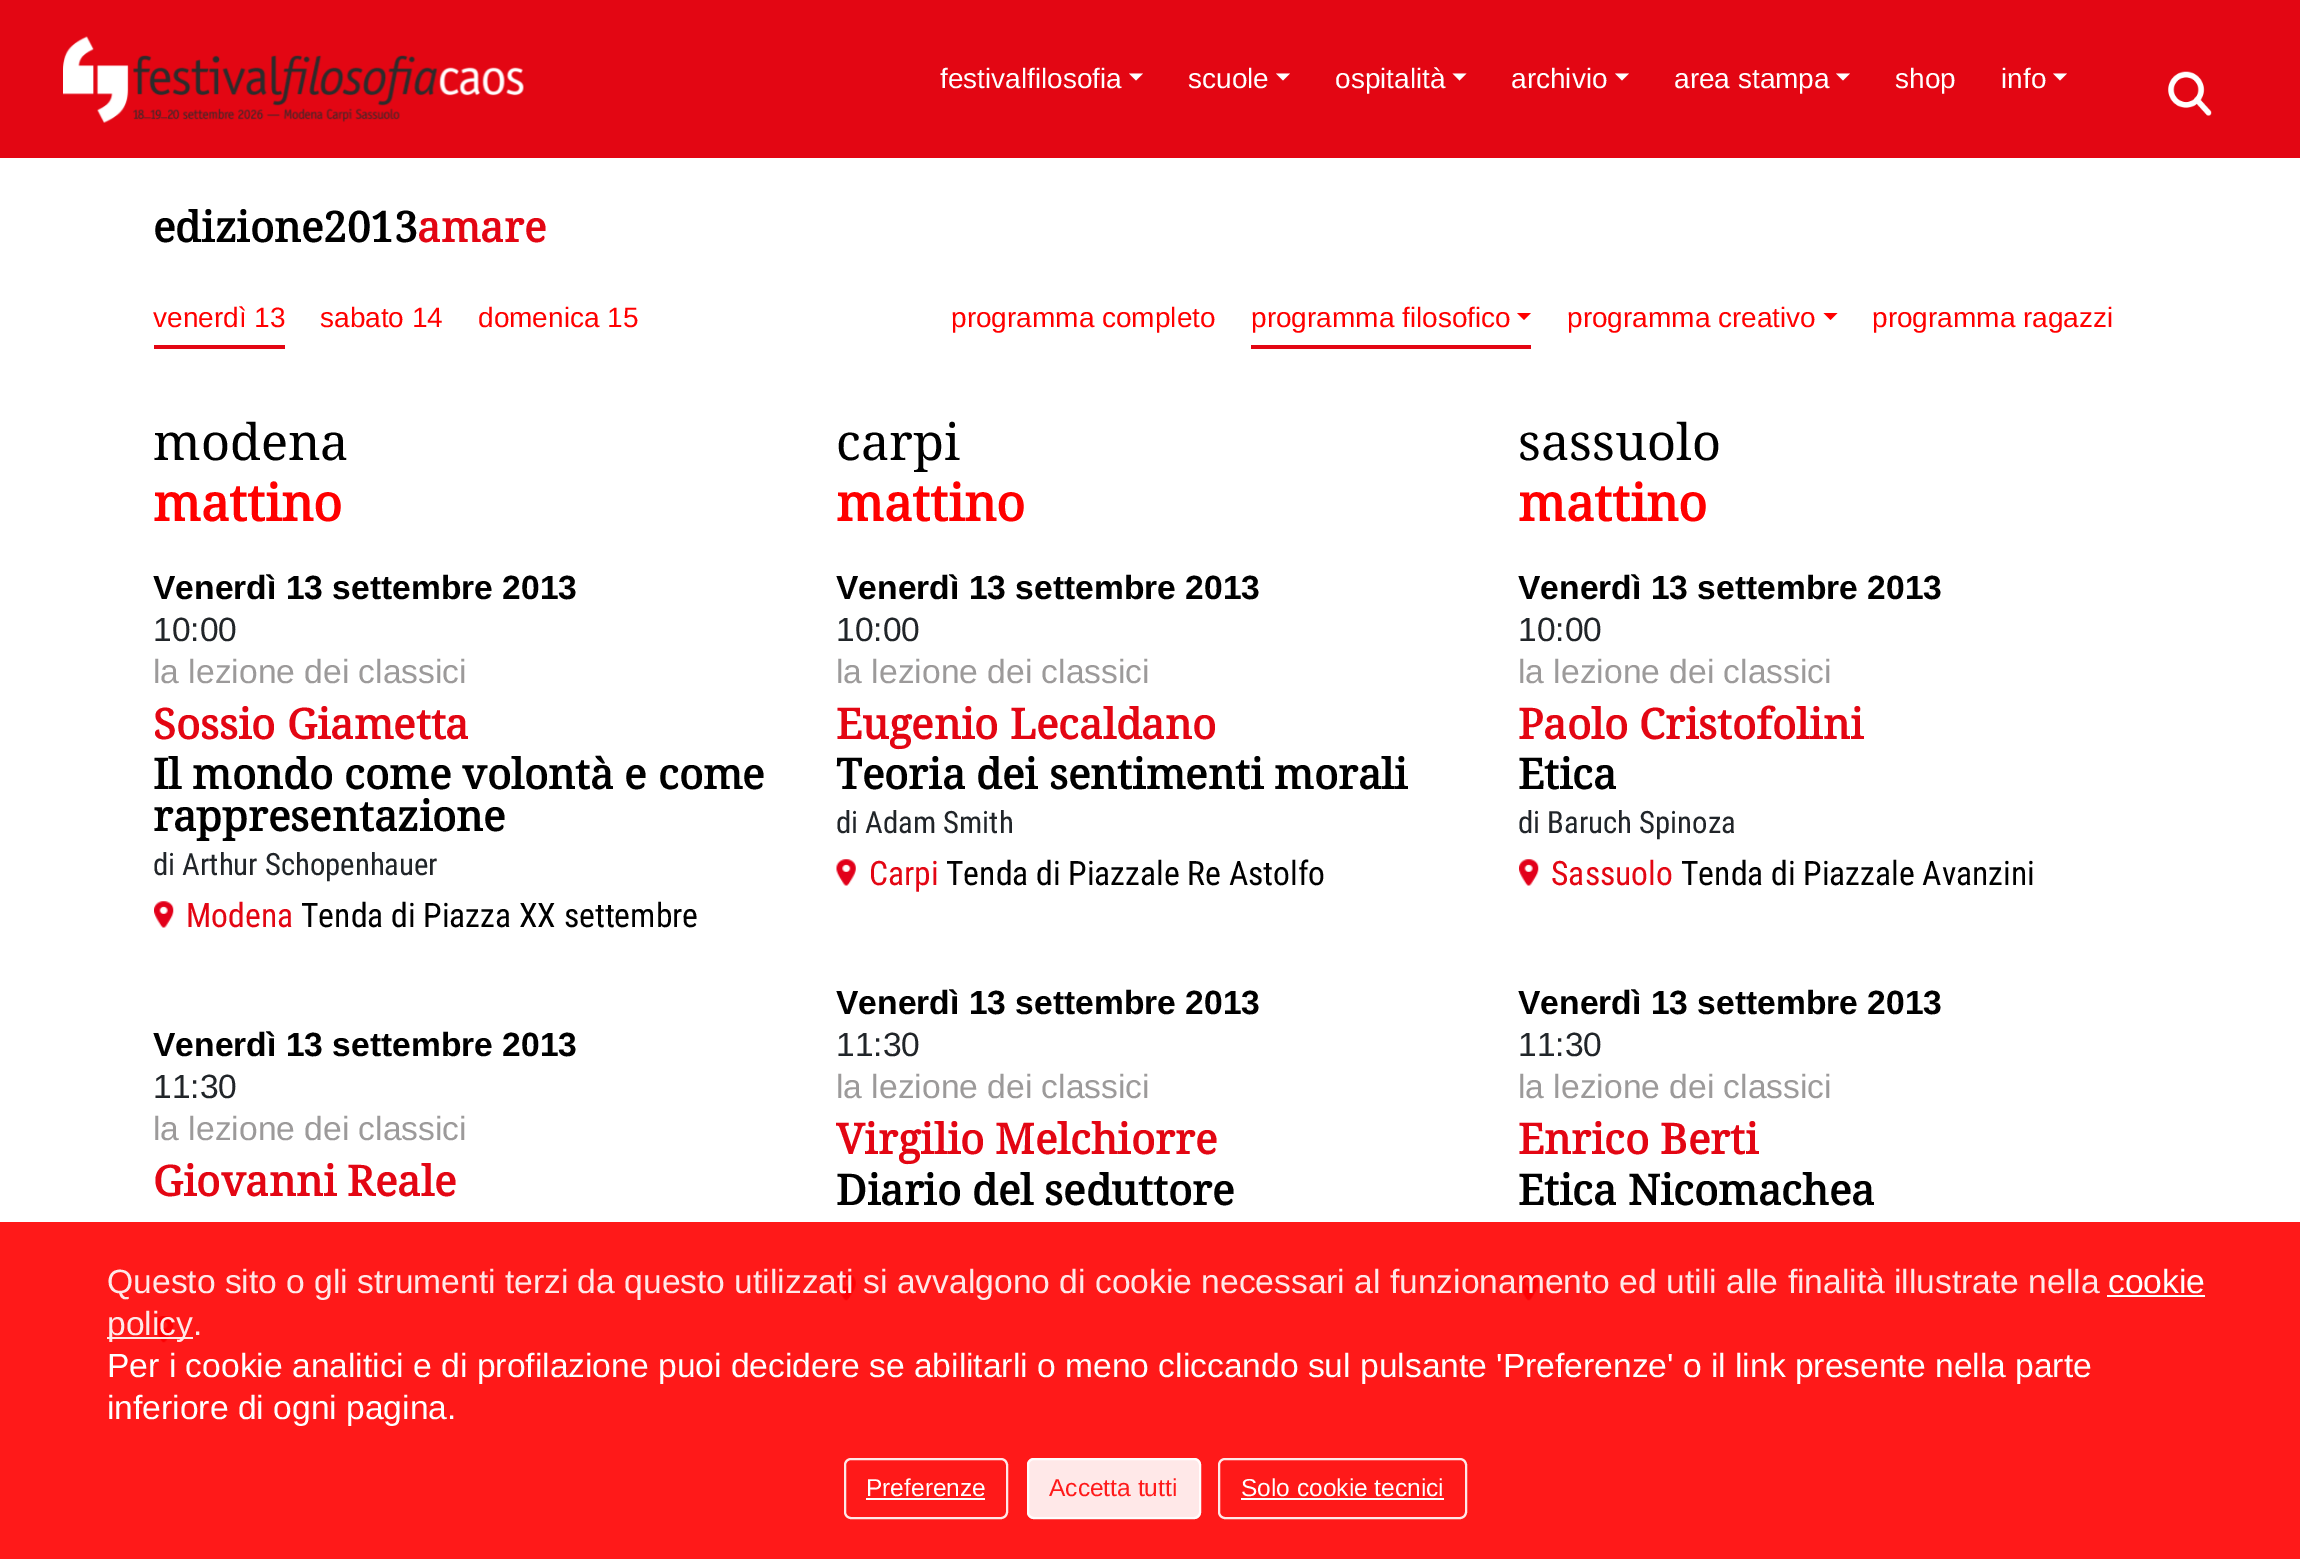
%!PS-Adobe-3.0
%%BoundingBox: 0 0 2300 1559
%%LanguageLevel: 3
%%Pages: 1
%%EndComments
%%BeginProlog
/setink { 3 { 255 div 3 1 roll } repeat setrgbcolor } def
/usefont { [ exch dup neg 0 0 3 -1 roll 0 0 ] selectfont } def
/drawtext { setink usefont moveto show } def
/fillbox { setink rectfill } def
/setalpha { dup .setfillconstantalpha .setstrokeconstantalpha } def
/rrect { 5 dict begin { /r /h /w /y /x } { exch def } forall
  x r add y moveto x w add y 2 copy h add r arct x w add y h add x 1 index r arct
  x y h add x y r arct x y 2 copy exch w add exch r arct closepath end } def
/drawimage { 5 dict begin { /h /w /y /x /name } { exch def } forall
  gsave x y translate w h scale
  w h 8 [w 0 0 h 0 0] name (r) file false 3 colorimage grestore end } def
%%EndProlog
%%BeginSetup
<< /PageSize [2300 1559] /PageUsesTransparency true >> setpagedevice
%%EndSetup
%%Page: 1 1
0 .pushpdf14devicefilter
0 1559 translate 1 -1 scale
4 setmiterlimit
0 0 2300 1559 255 255 255 fillbox
0 0 2300 158 227 6 19 fillbox
(assets/img1.rgb) 63 36 461 87 drawimage
(festivalfilosofia) 940 88 /LiberationSans-Regular 28 255 255 255 drawtext
1129 73.5 moveto 1143 73.5 lineto 1136 80.5 lineto closepath fill
(scuole) 1188 88 /LiberationSans-Regular 28 255 255 255 drawtext
1276 73.5 moveto 1290 73.5 lineto 1283 80.5 lineto closepath fill
(ospitalità) 1335 88 /LiberationSans-Regular 28 255 255 255 drawtext
1452.5 73.5 moveto 1466.5 73.5 lineto 1459.5 80.5 lineto closepath fill
(archivio) 1511 88 /LiberationSans-Regular 28 255 255 255 drawtext
1615 73.5 moveto 1629 73.5 lineto 1622 80.5 lineto closepath fill
(area stampa) 1674 88 /LiberationSans-Regular 28 255 255 255 drawtext
1836 73.5 moveto 1850 73.5 lineto 1843 80.5 lineto closepath fill
(shop) 1895 88 /LiberationSans-Regular 28 255 255 255 drawtext
(info) 2001 88 /LiberationSans-Regular 28 255 255 255 drawtext
2053 73.5 moveto 2067 73.5 lineto 2060 80.5 lineto closepath fill
(assets/img2.rgb) 2168 71 44 45 drawimage
(edizione2013) 153 242 /NotoSerif-Bold 42 0 0 0 drawtext
(amare) 417 242 /NotoSerif-Bold 42 227 6 19 drawtext
(venerdì 13) 153 327 /LiberationSans-Regular 28 255 0 0 drawtext
154 345 131 4 227 6 19 fillbox
(sabato 14) 320 327 /LiberationSans-Regular 28 255 0 0 drawtext
(domenica 15) 478 327 /LiberationSans-Regular 28 255 0 0 drawtext
(programma completo) 951 327 /LiberationSans-Regular 28 255 0 0 drawtext
(programma filosofico) 1251 327 /LiberationSans-Regular 28 255 0 0 drawtext
1517 313 moveto 1531 313 lineto 1524 320 lineto closepath fill
1251 345 280 4 227 6 19 fillbox
(programma creativo) 1567 327 /LiberationSans-Regular 28 255 0 0 drawtext
1823.5 313 moveto 1837.5 313 lineto 1830.5 320 lineto closepath fill
(programma ragazzi) 1872 327 /LiberationSans-Regular 28 255 0 0 drawtext
(modena) 153 460 /NotoSerif-Regular 50.5 0 0 0 drawtext
(mattino) 153 521 /NotoSerif-Bold 50.5 255 0 0 drawtext
(Venerdì 13 settembre 2013) 153 599 /LiberationSans-Bold 33.6 0 0 0 drawtext
(10:00) 153 641 /LiberationSans-Regular 33.6 33 37 41 drawtext
(la lezione dei classici) 153 683 /LiberationSans-Regular 33.6 156 154 154 drawtext
(Sossio Giametta) 153 739 /NotoSerif-Bold 42 227 6 19 drawtext
(Il mondo come volontà e come) 153 789 /NotoSerif-Bold 42 0 0 0 drawtext
(rappresentazione) 153 831 /NotoSerif-Bold 42 0 0 0 drawtext
(di Arthur Schopenhauer) 153 875 /RobotoCondensed-Regular 30.75 33 37 41 drawtext
(assets/img3.rgb) 154 901 20 27 drawimage
(Modena) 186 927 /RobotoCondensed-Regular 33.6 227 6 19 drawtext
(Tenda di Piazza XX settembre) 301 927 /RobotoCondensed-Regular 33.6 0 0 0 drawtext
(Venerdì 13 settembre 2013) 153 1056 /LiberationSans-Bold 33.6 0 0 0 drawtext
(11:30) 153 1098 /LiberationSans-Regular 33.6 33 37 41 drawtext
(la lezione dei classici) 153 1140 /LiberationSans-Regular 33.6 156 154 154 drawtext
(Giovanni Reale) 153 1196 /NotoSerif-Bold 42 227 6 19 drawtext
(assets/img4.rgb) 154 1316 20 27 drawimage
(carpi) 836 460 /NotoSerif-Regular 50.5 0 0 0 drawtext
(mattino) 836 521 /NotoSerif-Bold 50.5 255 0 0 drawtext
(Venerdì 13 settembre 2013) 836 599 /LiberationSans-Bold 33.6 0 0 0 drawtext
(10:00) 836 641 /LiberationSans-Regular 33.6 33 37 41 drawtext
(la lezione dei classici) 836 683 /LiberationSans-Regular 33.6 156 154 154 drawtext
(Eugenio Lecaldano) 836 739 /NotoSerif-Bold 42 227 6 19 drawtext
(Teoria dei sentimenti morali) 836 789 /NotoSerif-Bold 42 0 0 0 drawtext
(di Adam Smith) 836 833 /RobotoCondensed-Regular 30.75 33 37 41 drawtext
(assets/img5.rgb) 836 859 20 27 drawimage
(Carpi) 869 885 /RobotoCondensed-Regular 33.6 227 6 19 drawtext
(Tenda di Piazzale Re Astolfo) 946 885 /RobotoCondensed-Regular 33.6 0 0 0 drawtext
(Venerdì 13 settembre 2013) 836 1014 /LiberationSans-Bold 33.6 0 0 0 drawtext
(11:30) 836 1056 /LiberationSans-Regular 33.6 33 37 41 drawtext
(la lezione dei classici) 836 1098 /LiberationSans-Regular 33.6 156 154 154 drawtext
(Virgilio Melchiorre) 836 1154 /NotoSerif-Bold 42 227 6 19 drawtext
(Diario del seduttore) 836 1205 /NotoSerif-Bold 42 0 0 0 drawtext
(assets/img6.rgb) 836 1274 20 27 drawimage
(sassuolo) 1518 460 /NotoSerif-Regular 50.5 0 0 0 drawtext
(mattino) 1518 521 /NotoSerif-Bold 50.5 255 0 0 drawtext
(Venerdì 13 settembre 2013) 1518 599 /LiberationSans-Bold 33.6 0 0 0 drawtext
(10:00) 1518 641 /LiberationSans-Regular 33.6 33 37 41 drawtext
(la lezione dei classici) 1518 683 /LiberationSans-Regular 33.6 156 154 154 drawtext
(Paolo Cristofolini) 1518 739 /NotoSerif-Bold 42 227 6 19 drawtext
(Etica) 1518 789 /NotoSerif-Bold 42 0 0 0 drawtext
(di Baruch Spinoza) 1518 833 /RobotoCondensed-Regular 30.75 33 37 41 drawtext
(assets/img3.rgb) 1519 859 20 27 drawimage
(Sassuolo) 1551 885 /RobotoCondensed-Regular 33.6 227 6 19 drawtext
(Tenda di Piazzale Avanzini) 1681 885 /RobotoCondensed-Regular 33.6 0 0 0 drawtext
(Venerdì 13 settembre 2013) 1518 1014 /LiberationSans-Bold 33.6 0 0 0 drawtext
(11:30) 1518 1056 /LiberationSans-Regular 33.6 33 37 41 drawtext
(la lezione dei classici) 1518 1098 /LiberationSans-Regular 33.6 156 154 154 drawtext
(Enrico Berti) 1518 1154 /NotoSerif-Bold 42 227 6 19 drawtext
(Etica Nicomachea) 1518 1205 /NotoSerif-Bold 42 0 0 0 drawtext
(assets/img4.rgb) 1519 1274 20 27 drawimage
0.9 setalpha
0 1222 2300 337 255 0 0 fillbox
1 setalpha
(Questo sito o gli strumenti terzi da questo utilizzati si avvalgono di cookie necessari al funzionamento ed utili alle finalità illustrate nella) 107 1293 /LiberationSans-Regular 33.6 255 232 232 drawtext
(cookie) 2108 1293 /LiberationSans-Regular 33.6 255 255 255 drawtext
2107 1295 98 2 255 255 255 fillbox
0.9 setalpha
107 1337 86 2 255 255 255 fillbox
1 setalpha
(policy) 107 1335 /LiberationSans-Regular 33.6 255 232 232 drawtext
(.) 193 1335 /LiberationSans-Regular 33.6 255 232 232 drawtext
(Per i cookie analitici e di profilazione puoi decidere se abilitarli o meno cliccando sul pulsante 'Preferenze' o il link presente nella parte) 107 1377 /LiberationSans-Regular 33.6 255 255 255 drawtext
(inferiore di ogni pagina.) 107 1419 /LiberationSans-Regular 33.6 255 255 255 drawtext
0.9 setalpha
2 setlinewidth
845 1459 162 59 6 rrect stroke
1 setalpha
(Preferenze) 866 1496 /LiberationSans-Regular 24.5 255 255 255 drawtext
866 1498 119 2 255 255 255 fillbox
0.9 setalpha
1027 1458 174 61 7 rrect fill
1028 1459 172 59 6 rrect stroke
1 setalpha
(Accetta tutti) 1049 1496 /LiberationSans-Regular 24.5 255 26 26 drawtext
0.9 setalpha
255 255 255 setink
1219 1459 247 59 6 rrect stroke
1 setalpha
(Solo cookie tecnici) 1241 1496 /LiberationSans-Regular 24.5 255 255 255 drawtext
1241 1498 203 2 255 255 255 fillbox
.poppdf14devicefilter showpage
%%EOF
